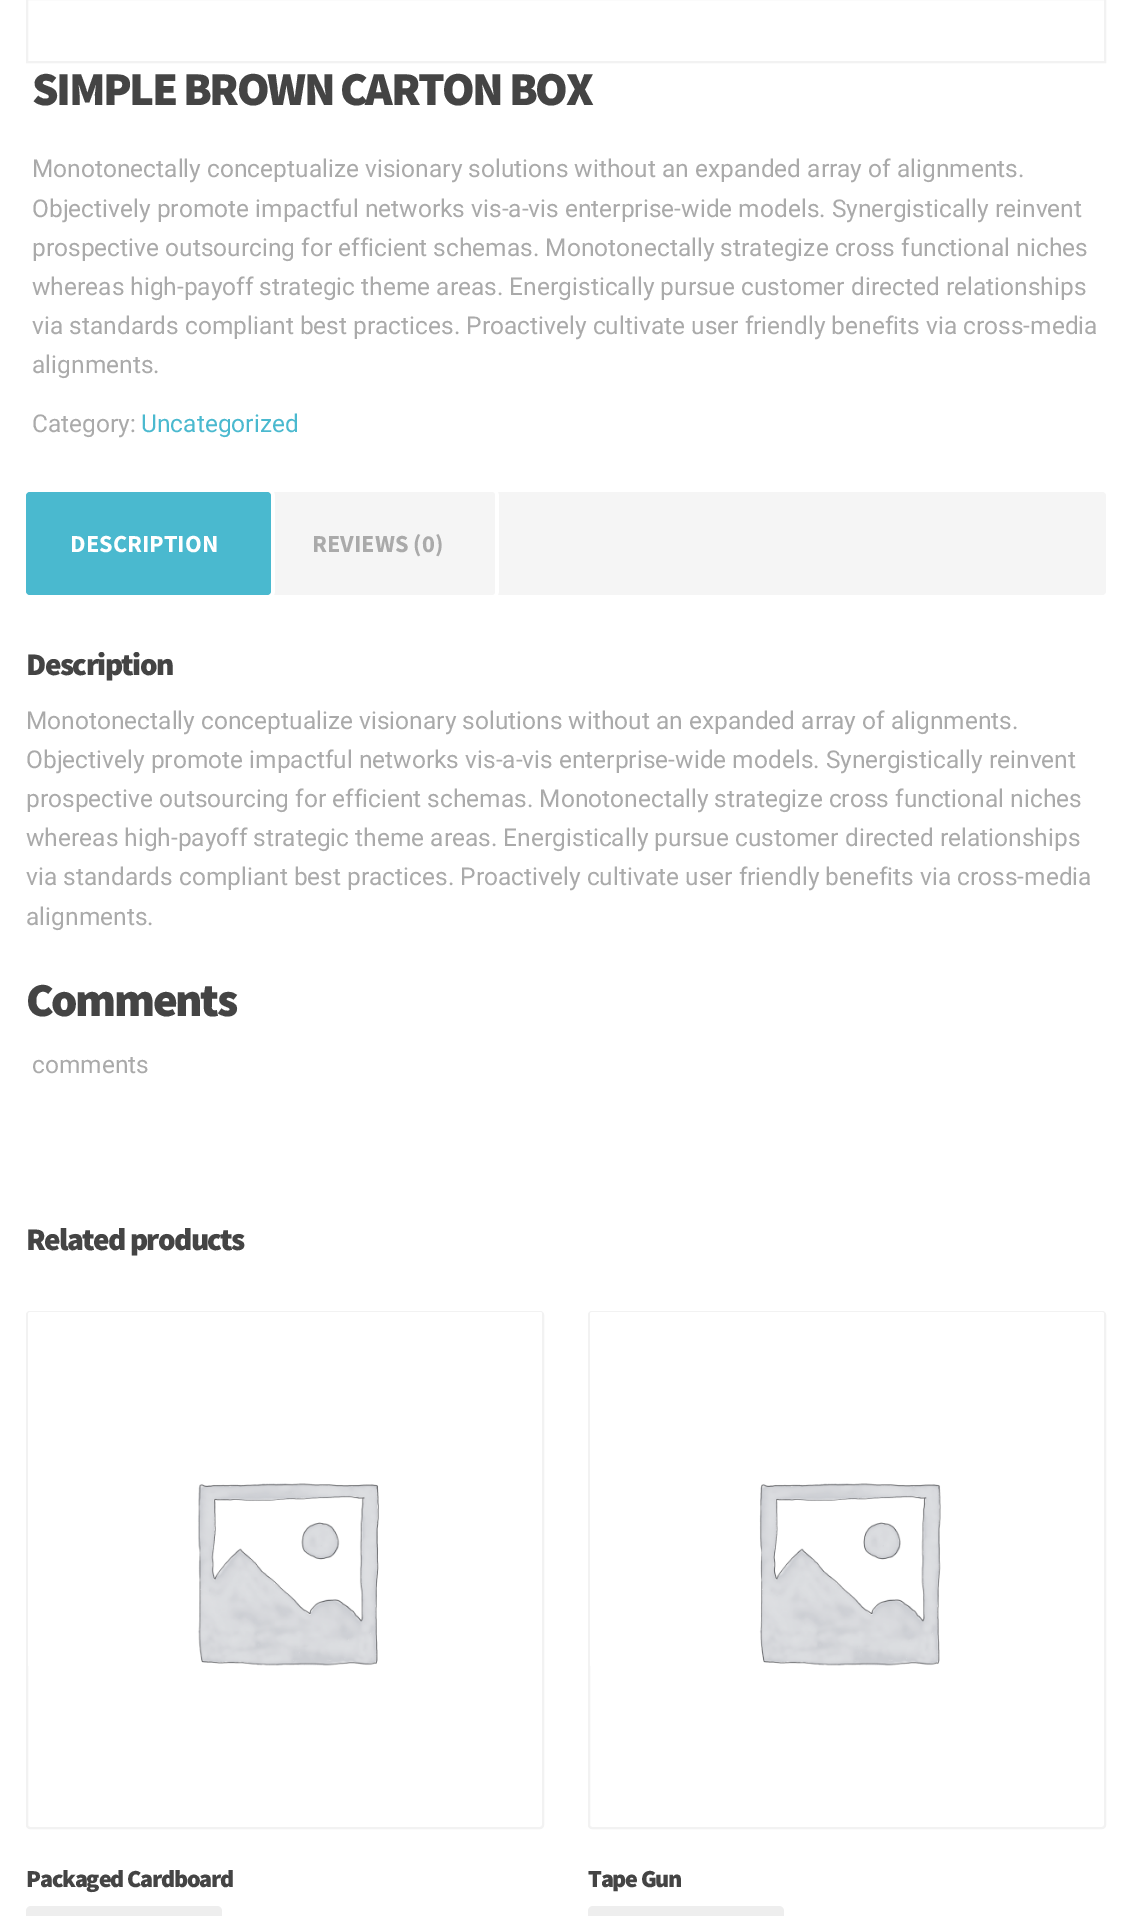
%!PS-Adobe-3.0
%%BoundingBox: 0 0 1132 1916
%%LanguageLevel: 3
%%Pages: 1
%%EndComments
%%BeginProlog
/setink { 3 { 255 div 3 1 roll } repeat setrgbcolor } def
/usefont { [ exch dup neg 0 0 3 -1 roll 0 0 ] selectfont } def
/drawtext { setink usefont moveto show } def
/fillbox { setink rectfill } def
/rrect { 5 dict begin { /r /h /w /y /x } { exch def } forall
  x r add y moveto x w add y 2 copy h add r arct x w add y h add x 1 index r arct
  x y h add x y r arct x y 2 copy exch w add exch r arct closepath end } def
/drawimage { 5 dict begin { /h /w /y /x /name } { exch def } forall
  gsave x y translate w h scale
  w h 8 [w 0 0 h 0 0] name (r) file false 3 colorimage grestore end } def
%%EndProlog
%%BeginSetup
<< /PageSize [1132 1916] >> setpagedevice
%%EndSetup
%%Page: 1 1
0 1916 translate 1 -1 scale
4 setmiterlimit
0 0 1132 1916 255 255 255 fillbox
242 242 242 setink
2 setlinewidth
27 -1 1078 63 rectstroke
/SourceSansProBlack-Black 47.25 usefont
68 68 68 setink
32 105 moveto -2.4 0 (SIMPLE BROWN CARTON BOX) ashow
(Monotonectally conceptualize visionary solutions without an expanded array of alignments.) 32 177 /Roboto-Regular 24.5 170 170 170 drawtext
(Objectively promote impactful networks vis-a-vis enterprise-wide models. Synergistically reinvent) 32 217 /Roboto-Regular 24.5 170 170 170 drawtext
(prospective outsourcing for efficient schemas. Monotonectally strategize cross functional niches) 32 256 /Roboto-Regular 24.5 170 170 170 drawtext
(whereas high-payoff strategic theme areas. Energistically pursue customer directed relationships) 32 295 /Roboto-Regular 24.5 170 170 170 drawtext
(via standards compliant best practices. Proactively cultivate user friendly benefits via cross-media) 32 334 /Roboto-Regular 24.5 170 170 170 drawtext
(alignments.) 32 373 /Roboto-Regular 24.5 170 170 170 drawtext
(Category:) 32 432 /Roboto-Regular 24.5 170 170 170 drawtext
(Uncategorized) 141 432 /Roboto-Regular 24.5 74 185 207 drawtext
245 245 245 setink
26 492 1080 103 4 rrect fill
255 255 255 setink
263 492 moveto 261 492 260 493 260 495 curveto 260 592 lineto 260 594 261 595 263 595 curveto 257 595 lineto 256 592 lineto 256 495 lineto 257 492 lineto closepath 498 492 moveto 499 495 lineto 499 592 lineto 498 595 lineto 492 595 lineto 494 595 495 594 495 592 curveto 495 495 lineto 495 493 494 492 492 492 curveto closepath eofill
245 245 245 setink
259 492 236 103 4 rrect fill
255 255 255 setink
274 492 moveto 275 495 lineto 275 592 lineto 274 595 lineto 268 595 lineto 270 595 271 594 271 592 curveto 271 495 lineto 271 493 270 492 268 492 curveto closepath fill
74 185 207 setink
26 492 245 103 4 rrect fill
(DESCRIPTION) 70 552 /SourceSansPro-Bold 24.5 255 255 255 drawtext
(REVIEWS \(0\)) 312 552 /SourceSansPro-Bold 24.5 170 170 170 drawtext
/SourceSansProBlack-Black 31.5 usefont
68 68 68 setink
26 675 moveto -1.6 0 (Description) ashow
(Monotonectally conceptualize visionary solutions without an expanded array of alignments.) 26 729 /Roboto-Regular 24.5 170 170 170 drawtext
(Objectively promote impactful networks vis-a-vis enterprise-wide models. Synergistically reinvent) 26 768 /Roboto-Regular 24.5 170 170 170 drawtext
(prospective outsourcing for efficient schemas. Monotonectally strategize cross functional niches) 26 807 /Roboto-Regular 24.5 170 170 170 drawtext
(whereas high-payoff strategic theme areas. Energistically pursue customer directed relationships) 26 846 /Roboto-Regular 24.5 170 170 170 drawtext
(via standards compliant best practices. Proactively cultivate user friendly benefits via cross-media) 26 885 /Roboto-Regular 24.5 170 170 170 drawtext
(alignments.) 26 925 /Roboto-Regular 24.5 170 170 170 drawtext
/SourceSansProBlack-Black 47.25 usefont
68 68 68 setink
26 1016 moveto -2.4 0 (Comments) ashow
(comments) 32 1073 /Roboto-Regular 24.5 170 170 170 drawtext
/SourceSansProBlack-Black 31.5 usefont
68 68 68 setink
26 1250 moveto -1.6 0 (Related products) ashow
242 242 242 setink
27 1312 516 516 3 rrect stroke
(assets/img1.rgb) 28 1312 514 354 drawimage
/SourceSansProBlack-Black 24.5 usefont
68 68 68 setink
26 1887 moveto -1.25 0 (Packaged Cardboard) ashow
238 238 238 setink
26 1906 196 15 5 rrect fill
242 242 242 setink
589 1312 516 516 3 rrect stroke
(assets/img2.rgb) 590 1312 514 354 drawimage
68 68 68 setink
588 1887 moveto -1.25 0 (Tape Gun) ashow
238 238 238 setink
588 1906 196 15 5 rrect fill
showpage
%%EOF
